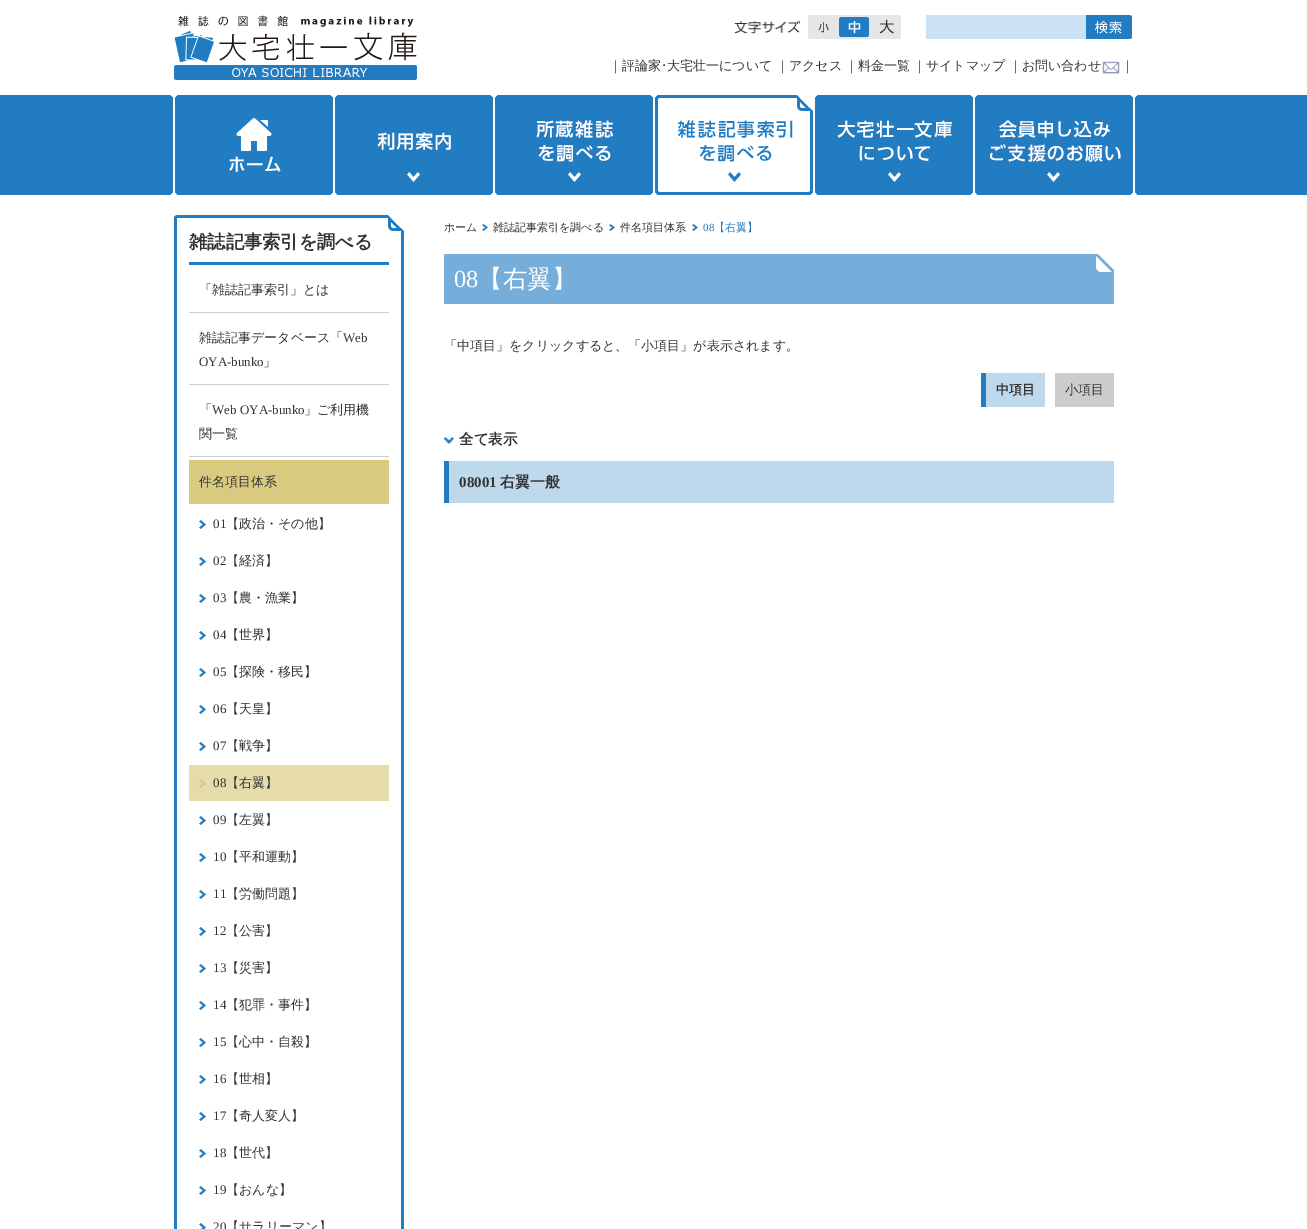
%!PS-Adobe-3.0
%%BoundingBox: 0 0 1307 1229
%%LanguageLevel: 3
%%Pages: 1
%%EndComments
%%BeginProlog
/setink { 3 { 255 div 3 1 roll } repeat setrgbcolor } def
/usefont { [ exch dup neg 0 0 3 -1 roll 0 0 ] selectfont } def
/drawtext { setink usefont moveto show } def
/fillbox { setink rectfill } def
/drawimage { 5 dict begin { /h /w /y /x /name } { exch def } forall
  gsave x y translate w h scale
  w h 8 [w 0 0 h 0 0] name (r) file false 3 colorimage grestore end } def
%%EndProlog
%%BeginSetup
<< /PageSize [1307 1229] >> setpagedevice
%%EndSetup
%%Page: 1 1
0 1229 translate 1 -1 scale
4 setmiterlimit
0 0 1307 1229 255 255 255 fillbox
(assets/img1.rgb) 174 15 243 65 drawimage
(assets/img2.rgb) 734 20 67 14 drawimage
(assets/img3.rgb) 808 15 31 24 drawimage
(assets/img4.rgb) 839 15 31 24 drawimage
(assets/img5.rgb) 870 15 31 24 drawimage
926 15 160 24 202 225 243 fillbox
(assets/img6.rgb) 1086 15 46 24 drawimage
(｜評論家) 609 70 /WenQuanYiZenHei-Medium 13 51 51 51 drawtext
(･) 661 70 /IPAPGothic-Regular 13 51 51 51 drawtext
(大宅壮一について) 667 70 /WenQuanYiZenHei-Medium 13 51 51 51 drawtext
(｜アクセス) 776 70 /WenQuanYiZenHei-Medium 13 51 51 51 drawtext
(｜料金一覧) 845 70 /WenQuanYiZenHei-Medium 13 51 51 51 drawtext
(｜サイトマップ) 913 70 /WenQuanYiZenHei-Medium 13 51 51 51 drawtext
(｜お問い合わせ) 1009 70 /WenQuanYiZenHei-Medium 13 51 51 51 drawtext
(assets/img7.rgb) 1102 61 18 13 drawimage
(｜) 1121 70 /WenQuanYiZenHei-Medium 13 51 51 51 drawtext
0 95 1307 100 33 124 194 fillbox
(assets/img8.rgb) 170 95 164 100 drawimage
(assets/img9.rgb) 334 95 160 100 drawimage
(assets/img10.rgb) 494 95 160 100 drawimage
(assets/img11.rgb) 654 95 160 100 drawimage
(assets/img12.rgb) 814 95 160 100 drawimage
(assets/img13.rgb) 974 95 164 100 drawimage
(assets/img14.rgb) 174 215 230 1014 drawimage
189 262 200 3 33 124 194 fillbox
(雑誌記事索引を調べる) 189 248 /WenQuanYiZenHei-Bold 18.25 51 51 51 drawtext
189 312 200 1 206 206 206 fillbox
(「雑誌記事索引」とは) 199 294 /WenQuanYiZenHei-Medium 13 51 51 51 drawtext
189 384 200 1 206 206 206 fillbox
(雑誌記事データベース「) 199 342 /WenQuanYiZenHei-Medium 13 51 51 51 drawtext
(Web) 343 342 /LiberationSerif-Regular 13 51 51 51 drawtext
(OYA-bunko) 199 366 /LiberationSerif-Regular 13 51 51 51 drawtext
(」) 263 366 /WenQuanYiZenHei-Medium 13 51 51 51 drawtext
189 456 200 1 206 206 206 fillbox
(「) 199 414 /WenQuanYiZenHei-Medium 13 51 51 51 drawtext
(Web OYA-bunko) 212 414 /LiberationSerif-Regular 13 51 51 51 drawtext
(」ご利用機) 304 414 /WenQuanYiZenHei-Medium 13 51 51 51 drawtext
(関一覧) 199 438 /WenQuanYiZenHei-Medium 13 51 51 51 drawtext
189 460 200 44 216 202 126 fillbox
(件名項目体系) 199 486 /WenQuanYiZenHei-Medium 13 51 51 51 drawtext
(assets/img15.rgb) 199 520 7 9 drawimage
(01) 213 528 /LiberationSerif-Regular 13 51 51 51 drawtext
(【政治・その他】) 226 528 /WenQuanYiZenHei-Medium 13 51 51 51 drawtext
(assets/img15.rgb) 199 557 7 9 drawimage
(02) 213 565 /LiberationSerif-Regular 13 51 51 51 drawtext
(【経済】) 226 565 /WenQuanYiZenHei-Medium 13 51 51 51 drawtext
(assets/img15.rgb) 199 594 7 9 drawimage
(03) 213 602 /LiberationSerif-Regular 13 51 51 51 drawtext
(【農・漁業】) 226 602 /WenQuanYiZenHei-Medium 13 51 51 51 drawtext
(assets/img15.rgb) 199 631 7 9 drawimage
(04) 213 639 /LiberationSerif-Regular 13 51 51 51 drawtext
(【世界】) 226 639 /WenQuanYiZenHei-Medium 13 51 51 51 drawtext
(assets/img15.rgb) 199 668 7 9 drawimage
(05) 213 676 /LiberationSerif-Regular 13 51 51 51 drawtext
(【探険・移民】) 226 676 /WenQuanYiZenHei-Medium 13 51 51 51 drawtext
(assets/img15.rgb) 199 705 7 9 drawimage
(06) 213 713 /LiberationSerif-Regular 13 51 51 51 drawtext
(【天皇】) 226 713 /WenQuanYiZenHei-Medium 13 51 51 51 drawtext
(assets/img15.rgb) 199 742 7 9 drawimage
(07) 213 750 /LiberationSerif-Regular 13 51 51 51 drawtext
(【戦争】) 226 750 /WenQuanYiZenHei-Medium 13 51 51 51 drawtext
189 765 200 36 230 220 169 fillbox
(assets/img16.rgb) 199 779 7 9 drawimage
(08) 213 787 /LiberationSerif-Regular 13 51 51 51 drawtext
(【右翼】) 226 787 /WenQuanYiZenHei-Medium 13 51 51 51 drawtext
(assets/img15.rgb) 199 816 7 9 drawimage
(09) 213 824 /LiberationSerif-Regular 13 51 51 51 drawtext
(【左翼】) 226 824 /WenQuanYiZenHei-Medium 13 51 51 51 drawtext
(assets/img15.rgb) 199 853 7 9 drawimage
(10) 213 861 /LiberationSerif-Regular 13 51 51 51 drawtext
(【平和運動】) 226 861 /WenQuanYiZenHei-Medium 13 51 51 51 drawtext
(assets/img15.rgb) 199 890 7 9 drawimage
(11) 213 898 /LiberationSerif-Regular 13 51 51 51 drawtext
(【労働問題】) 226 898 /WenQuanYiZenHei-Medium 13 51 51 51 drawtext
(assets/img15.rgb) 199 927 7 9 drawimage
(12) 213 935 /LiberationSerif-Regular 13 51 51 51 drawtext
(【公害】) 226 935 /WenQuanYiZenHei-Medium 13 51 51 51 drawtext
(assets/img15.rgb) 199 964 7 9 drawimage
(13) 213 972 /LiberationSerif-Regular 13 51 51 51 drawtext
(【災害】) 226 972 /WenQuanYiZenHei-Medium 13 51 51 51 drawtext
(assets/img15.rgb) 199 1001 7 9 drawimage
(14) 213 1009 /LiberationSerif-Regular 13 51 51 51 drawtext
(【犯罪・事件】) 226 1009 /WenQuanYiZenHei-Medium 13 51 51 51 drawtext
(assets/img15.rgb) 199 1038 7 9 drawimage
(15) 213 1046 /LiberationSerif-Regular 13 51 51 51 drawtext
(【心中・自殺】) 226 1046 /WenQuanYiZenHei-Medium 13 51 51 51 drawtext
(assets/img15.rgb) 199 1075 7 9 drawimage
(16) 213 1083 /LiberationSerif-Regular 13 51 51 51 drawtext
(【世相】) 226 1083 /WenQuanYiZenHei-Medium 13 51 51 51 drawtext
(assets/img15.rgb) 199 1112 7 9 drawimage
(17) 213 1120 /LiberationSerif-Regular 13 51 51 51 drawtext
(【奇人変人】) 226 1120 /WenQuanYiZenHei-Medium 13 51 51 51 drawtext
(assets/img15.rgb) 199 1149 7 9 drawimage
(18) 213 1157 /LiberationSerif-Regular 13 51 51 51 drawtext
(【世代】) 226 1157 /WenQuanYiZenHei-Medium 13 51 51 51 drawtext
(assets/img15.rgb) 199 1186 7 9 drawimage
(19) 213 1194 /LiberationSerif-Regular 13 51 51 51 drawtext
(【おんな】) 226 1194 /WenQuanYiZenHei-Medium 13 51 51 51 drawtext
(assets/img17.rgb) 199 1223 7 6 drawimage
(20) 213 1231 /LiberationSerif-Regular 13 51 51 51 drawtext
(【サラリーマン】) 226 1231 /WenQuanYiZenHei-Medium 13 51 51 51 drawtext
(ホーム) 444 231 /WenQuanYiZenHei-Medium 11 51 51 51 drawtext
(assets/img18.rgb) 482 224 6 7 drawimage
(雑誌記事索引を調べる) 493 231 /WenQuanYiZenHei-Medium 11 51 51 51 drawtext
(assets/img18.rgb) 609 224 6 7 drawimage
(件名項目体系) 620 231 /WenQuanYiZenHei-Medium 11 51 51 51 drawtext
(assets/img18.rgb) 692 224 6 7 drawimage
(08) 703 231 /LiberationSerif-Regular 11 33 124 194 drawtext
(【右翼】) 714 231 /WenQuanYiZenHei-Medium 11 33 124 194 drawtext
444 254 670 50 117 174 218 fillbox
444 301 3 3 125 178 220 fillbox
(assets/img19.rgb) 1096 254 18 18 drawimage
444 254 3 3 125 178 220 fillbox
(08) 454 287 /LiberationSerif-Regular 24.5 255 255 255 drawtext
(【右翼】) 478 287 /WenQuanYiZenHei-Medium 24.5 255 255 255 drawtext
(「中項目」をクリックすると、「小項目」が表示されます。) 444 350 /WenQuanYiZenHei-Medium 13 51 51 51 drawtext
986 373 59 34 190 216 236 fillbox
981 373 5 34 33 124 194 fillbox
(中項目) 996 394 /WenQuanYiZenHei-Bold 13 51 51 51 drawtext
1055 373 59 34 204 204 204 fillbox
(小項目) 1065 394 /WenQuanYiZenHei-Medium 13 51 51 51 drawtext
(assets/img20.rgb) 444 437 10 7 drawimage
(全て表示) 459 444 /WenQuanYiZenHei-Bold 14.5 51 51 51 drawtext
449 461 665 42 190 216 236 fillbox
444 461 5 42 33 124 194 fillbox
(08001) 459 487 /LiberationSerif-Bold 15 51 51 51 drawtext
(右翼一般) 500 487 /WenQuanYiZenHei-Bold 15 51 51 51 drawtext
showpage
%%EOF
